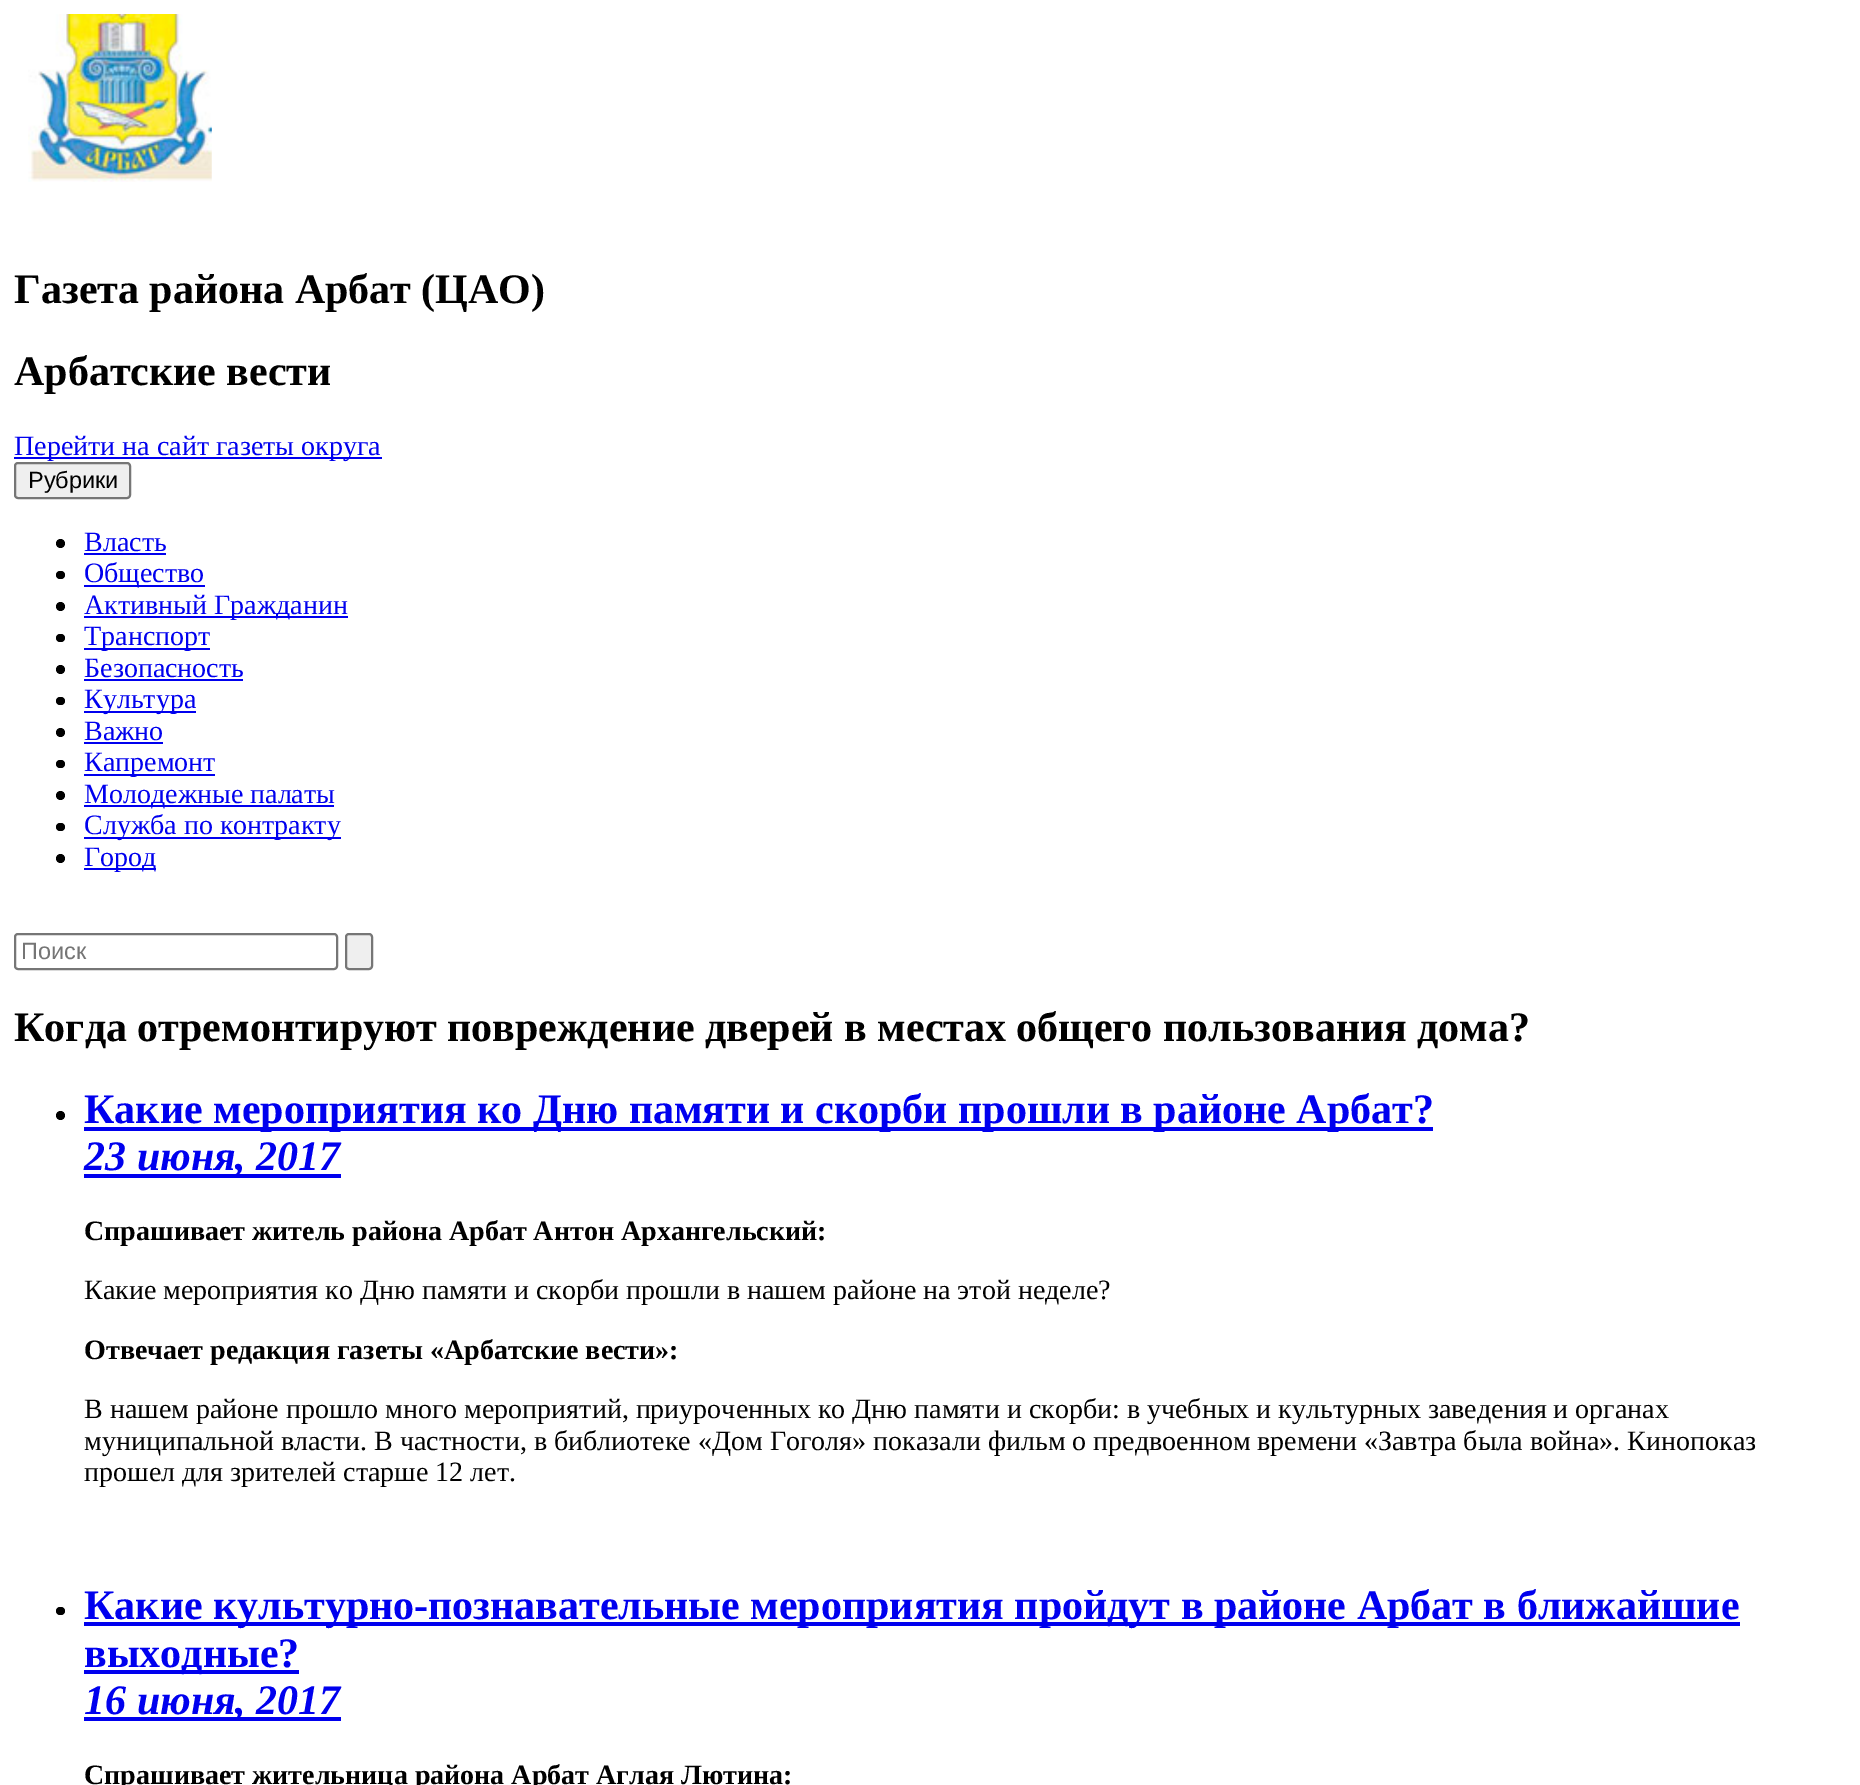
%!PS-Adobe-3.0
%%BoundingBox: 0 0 1860 1785
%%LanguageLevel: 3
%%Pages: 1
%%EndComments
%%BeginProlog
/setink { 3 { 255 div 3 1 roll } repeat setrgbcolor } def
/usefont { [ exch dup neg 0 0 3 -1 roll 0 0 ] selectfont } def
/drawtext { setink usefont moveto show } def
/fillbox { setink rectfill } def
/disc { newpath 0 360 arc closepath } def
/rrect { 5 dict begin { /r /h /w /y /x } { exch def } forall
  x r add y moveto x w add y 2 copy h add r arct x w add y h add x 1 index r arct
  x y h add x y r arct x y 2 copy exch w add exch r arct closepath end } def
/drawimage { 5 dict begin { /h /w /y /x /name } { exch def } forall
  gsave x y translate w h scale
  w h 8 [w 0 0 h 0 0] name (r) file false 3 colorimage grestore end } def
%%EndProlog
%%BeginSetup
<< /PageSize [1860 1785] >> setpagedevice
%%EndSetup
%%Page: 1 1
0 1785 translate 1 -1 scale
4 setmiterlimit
0 0 1860 1785 255 255 255 fillbox
(assets/img1.rgb) 28 14 184 168 drawimage
(Газета района Арбат \(ЦАО\)) 14 303 /LiberationSerif-Bold 42 0 0 0 drawtext
(Арбатские вести) 14 385 /LiberationSerif-Bold 42 0 0 0 drawtext
14 457 368 2 0 0 238 fillbox
(Перейти на сайт газеты округа) 14 455 /LiberationSerif-Regular 28 0 0 238 drawtext
239 239 239 setink
15 463 115 35 3 rrect gsave fill grestore
118 118 118 setink
2 setlinewidth
stroke
(Рубрики) 28 488 /LiberationSans-Regular 23.5 0 0 0 drawtext
60.5 543.5 4.5 disc fill
(Власть) 84 551 /LiberationSerif-Regular 28 0 0 238 drawtext
84 553 82 2 0 0 238 fillbox
0 0 0 setink
56 571 9 8 4 rrect fill
84 585 121 2 0 0 238 fillbox
(Общество) 84 582 /LiberationSerif-Regular 28 0 0 238 drawtext
0 0 0 setink
60.5 606.5 4.5 disc fill
84 616 264 2 0 0 238 fillbox
(Активный Гражданин) 84 614 /LiberationSerif-Regular 28 0 0 238 drawtext
0 0 0 setink
56 634 9 8 4 rrect fill
84 648 126 2 0 0 238 fillbox
(Транспорт) 84 645 /LiberationSerif-Regular 28 0 0 238 drawtext
0 0 0 setink
60.5 669.5 4.5 disc fill
(Безопасность) 84 677 /LiberationSerif-Regular 28 0 0 238 drawtext
84 679 159 2 0 0 238 fillbox
0 0 0 setink
56 697 9 8 4 rrect fill
84 711 112 2 0 0 238 fillbox
(Культура) 84 708 /LiberationSerif-Regular 28 0 0 238 drawtext
0 0 0 setink
60.5 732.5 4.5 disc fill
(Важно) 84 740 /LiberationSerif-Regular 28 0 0 238 drawtext
84 742 79 2 0 0 238 fillbox
0 0 0 setink
56 760 9 8 4 rrect fill
84 774 131 2 0 0 238 fillbox
(Капремонт) 84 771 /LiberationSerif-Regular 28 0 0 238 drawtext
0 0 0 setink
60.5 795.5 4.5 disc fill
84 805 250 2 0 0 238 fillbox
(Молодежные палаты) 84 803 /LiberationSerif-Regular 28 0 0 238 drawtext
0 0 0 setink
56 823 9 8 4 rrect fill
84 837 257 2 0 0 238 fillbox
(Служба по контракту) 84 834 /LiberationSerif-Regular 28 0 0 238 drawtext
0 0 0 setink
60.5 858.5 4.5 disc fill
84 868 72 2 0 0 238 fillbox
(Город) 84 866 /LiberationSerif-Regular 28 0 0 238 drawtext
118 118 118 setink
15 934 322 35 3 rrect stroke
(Поиск) 21 959 /LiberationSans-Regular 23.5 117 117 117 drawtext
239 239 239 setink
346 934 26 35 3 rrect gsave fill grestore
118 118 118 setink
stroke
(Когда отремонтируют повреждение дверей в местах общего пользования дома?) 14 1041 /LiberationSerif-Bold 42 0 0 0 drawtext
60.5 1115.5 4.5 disc fill
84 1127 1349 4 0 0 238 fillbox
(Какие мероприятия ко Дню памяти и скорби прошли в районе Арбат?) 84 1123 /LiberationSerif-Bold 42 0 0 238 drawtext
84 1174 257 4 0 0 238 fillbox
(23 июня, 2017) 84 1170 /LiberationSerif-BoldItalic 42 0 0 238 drawtext
(Спрашивает житель района Арбат Антон Архангельский:) 84 1240 /LiberationSerif-Bold 28 0 0 0 drawtext
(Какие мероприятия ко Дню памяти и скорби прошли в нашем районе на этой неделе?) 84 1299 /LiberationSerif-Regular 28 0 0 0 drawtext
(Отвечает редакция газеты «Арбатские вести»:) 84 1359 /LiberationSerif-Bold 28 0 0 0 drawtext
(В нашем районе прошло много мероприятий, приуроченных ко Дню памяти и скорби: в учебных и культурных заведения и органах) 84 1418 /LiberationSerif-Regular 28 0 0 0 drawtext
(муниципальной власти. В частности, в библиотеке «Дом Гоголя» показали фильм о предвоенном времени «Завтра была война». Кинопоказ) 84 1450 /LiberationSerif-Regular 28 0 0 0 drawtext
(прошел для зрителей старше 12 лет.) 84 1481 /LiberationSerif-Regular 28 0 0 0 drawtext
56 1607 9 8 4 rrect fill
84 1622 1656 4 0 0 238 fillbox
(Какие культурно-познавательные мероприятия пройдут в районе Арбат в ближайшие) 84 1619 /LiberationSerif-Bold 42 0 0 238 drawtext
84 1670 215 4 0 0 238 fillbox
(выходные?) 84 1667 /LiberationSerif-Bold 42 0 0 238 drawtext
84 1717 257 4 0 0 238 fillbox
(16 июня, 2017) 84 1714 /LiberationSerif-BoldItalic 42 0 0 238 drawtext
(Спрашивает жительница района Арбат Аглая Лютина:) 84 1784 /LiberationSerif-Bold 28 0 0 0 drawtext
showpage
%%EOF
